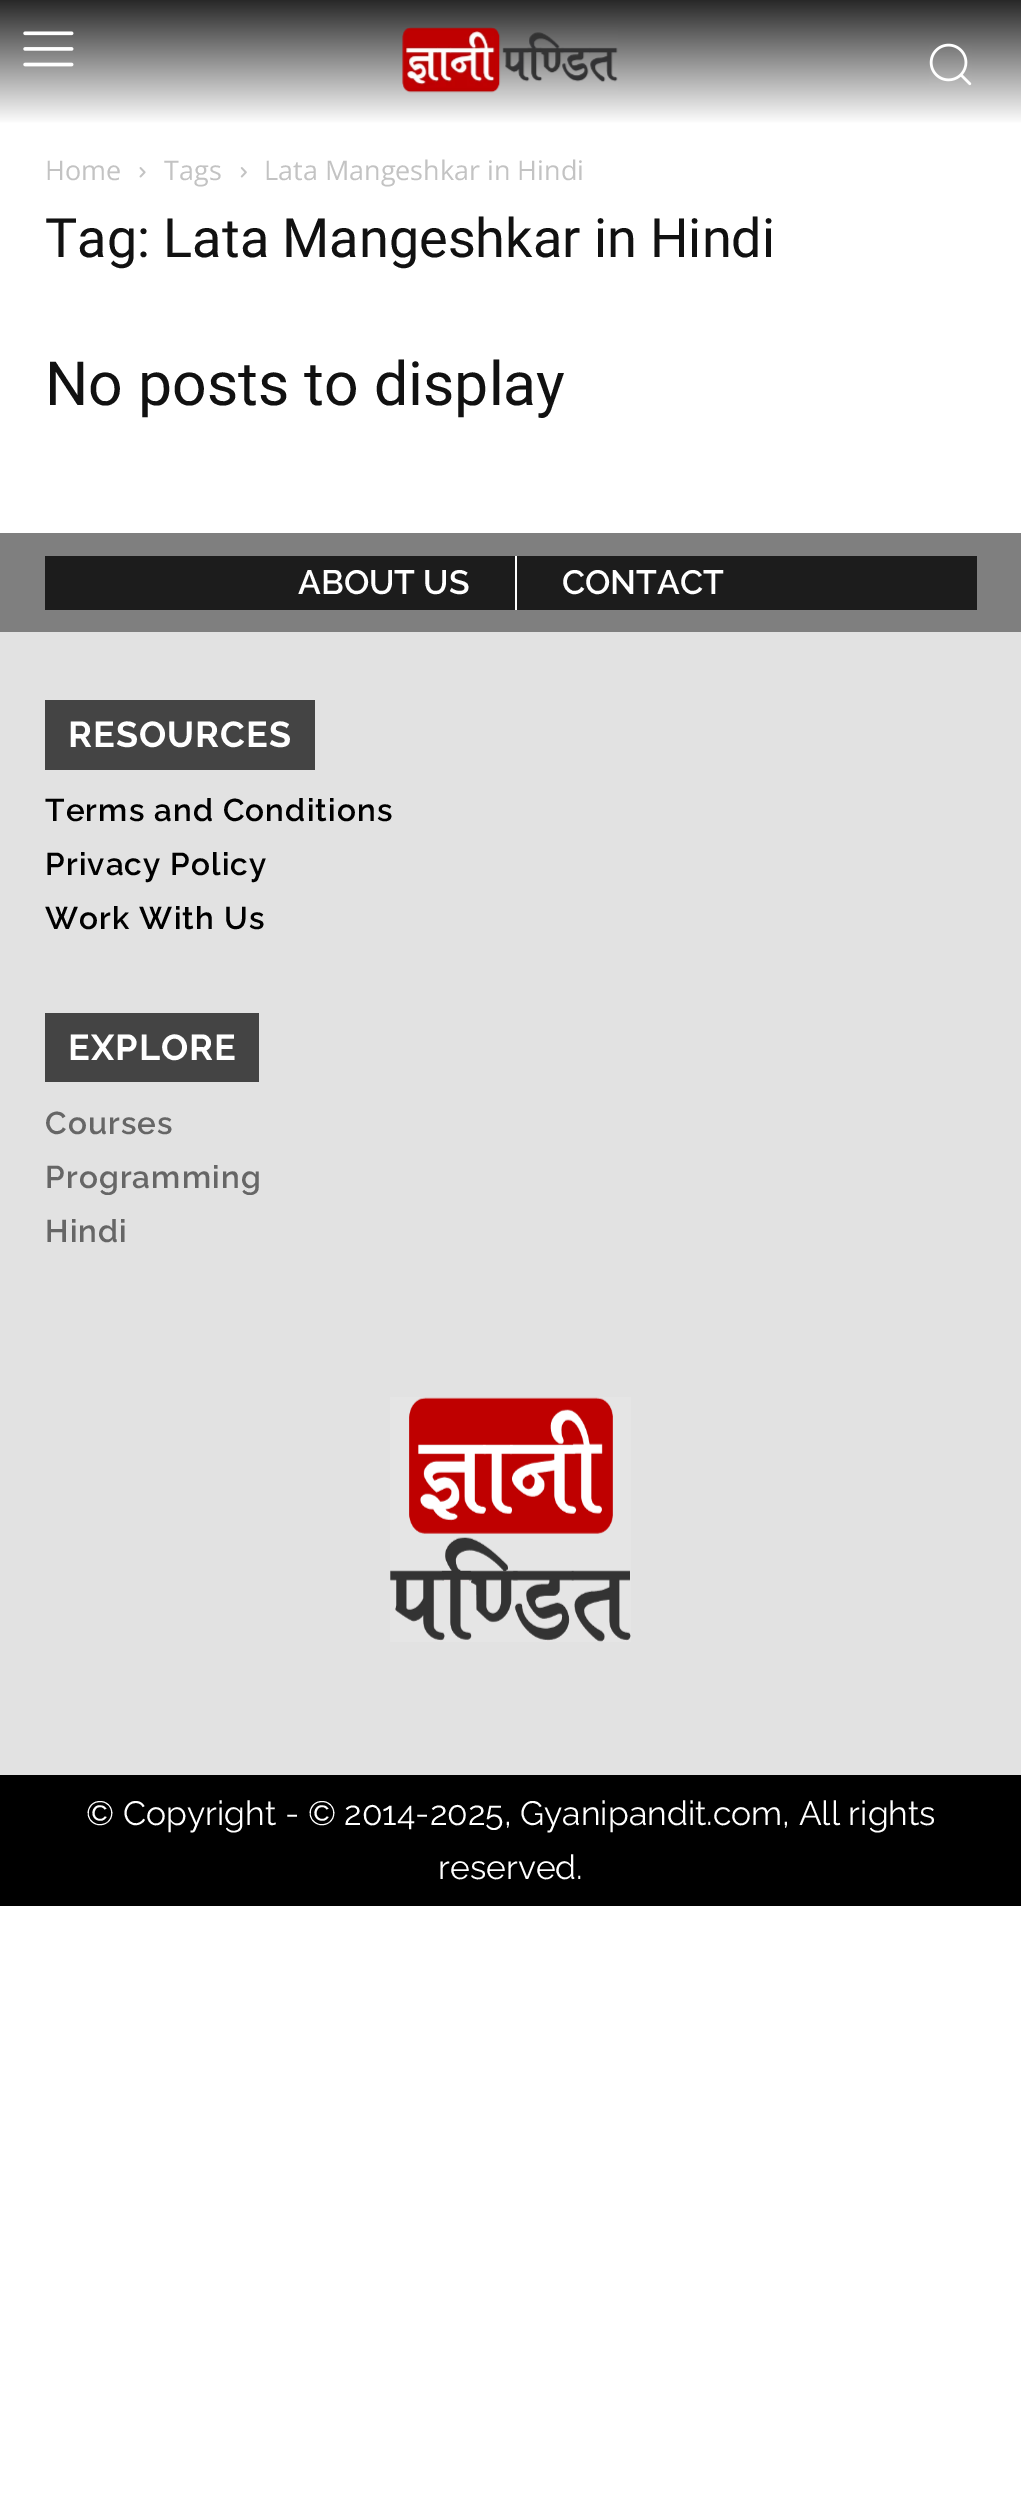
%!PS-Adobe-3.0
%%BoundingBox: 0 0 1021 2509
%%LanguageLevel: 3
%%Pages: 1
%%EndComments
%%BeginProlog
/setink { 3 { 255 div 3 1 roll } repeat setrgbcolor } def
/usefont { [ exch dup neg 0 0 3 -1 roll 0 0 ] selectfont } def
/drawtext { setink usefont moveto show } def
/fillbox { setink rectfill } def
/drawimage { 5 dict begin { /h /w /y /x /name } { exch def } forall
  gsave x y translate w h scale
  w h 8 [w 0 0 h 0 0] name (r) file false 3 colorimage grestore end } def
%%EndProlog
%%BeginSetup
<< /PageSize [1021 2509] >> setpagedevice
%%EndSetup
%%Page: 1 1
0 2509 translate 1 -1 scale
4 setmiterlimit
0 0 1021 2509 255 255 255 fillbox
gsave 0 0 moveto 1021 0 lineto 1021 123 lineto 0 123 lineto closepath clip newpath
<< /ShadingType 2 /ColorSpace /DeviceRGB /Coords [511 0 511 124] /Extend [true true] /Function << /FunctionType 2 /Domain [0 1] /C0 [0.157 0.157 0.157] /C1 [1 1 1] /N 1 >> >> shfill grestore
(assets/img1.rgb) 23 31 51 36 drawimage
(assets/img2.rgb) 402 27 216 66 drawimage
(assets/img3.rgb) 929 43 43 43 drawimage
(Home) 45 180 /OpenSans-Regular 27 195 195 195 drawtext
(assets/img4.rgb) 139 167 7 11 drawimage
(Tags) 164 180 /OpenSans-Regular 27 195 195 195 drawtext
(assets/img5.rgb) 240 167 7 11 drawimage
(Lata Mangeshkar in Hindi) 264 180 /OpenSans-Regular 27 195 195 195 drawtext
(Tag: Lata Mangeshkar in Hindi) 45 257 /Roboto-Regular 54 17 17 17 drawtext
(No posts to display) 45 405 /Roboto-Regular 60.75 17 17 17 drawtext
0 533 1021 99 127 127 127 fillbox
45 556 932 54 28 28 28 fillbox
515 556 2 54 255 255 255 fillbox
(ABOUT US) 298 594 /Raleway-SemiBold 33.75 255 255 255 drawtext
(CONTACT) 562 594 /Raleway-SemiBold 33.75 255 255 255 drawtext
0 632 1021 1143 226 226 226 fillbox
45 700 270 70 68 68 68 fillbox
/Raleway-Bold 36 usefont
255 255 255 setink
68 747 moveto 1.1 0 (RESOURCES) ashow
/Raleway-SemiBold 31.5 usefont
0 0 0 setink
45 821 moveto 1.1 0 (Terms and Conditions) ashow
45 875 moveto 1.1 0 (Privacy Policy) ashow
45 929 moveto 1.1 0 (Work With Us) ashow
45 1013 214 69 68 68 68 fillbox
/Raleway-Bold 36 usefont
255 255 255 setink
68 1060 moveto 1.1 0 (EXPLORE) ashow
/Raleway-SemiBold 31.5 usefont
102 102 102 setink
45 1134 moveto 1.1 0 (Courses) ashow
45 1188 moveto 1.1 0 (Programming) ashow
45 1242 moveto 1.1 0 (Hindi) ashow
(assets/img6.rgb) 390 1397 241 245 drawimage
0 1775 1021 131 0 0 0 fillbox
(© Copyright - © 2014-2025, Gyanipandit.com, All rights) 86 1825 /Raleway-Regular 33.75 255 255 255 drawtext
(reserved.) 438 1879 /Raleway-Regular 33.75 255 255 255 drawtext
showpage
%%EOF
